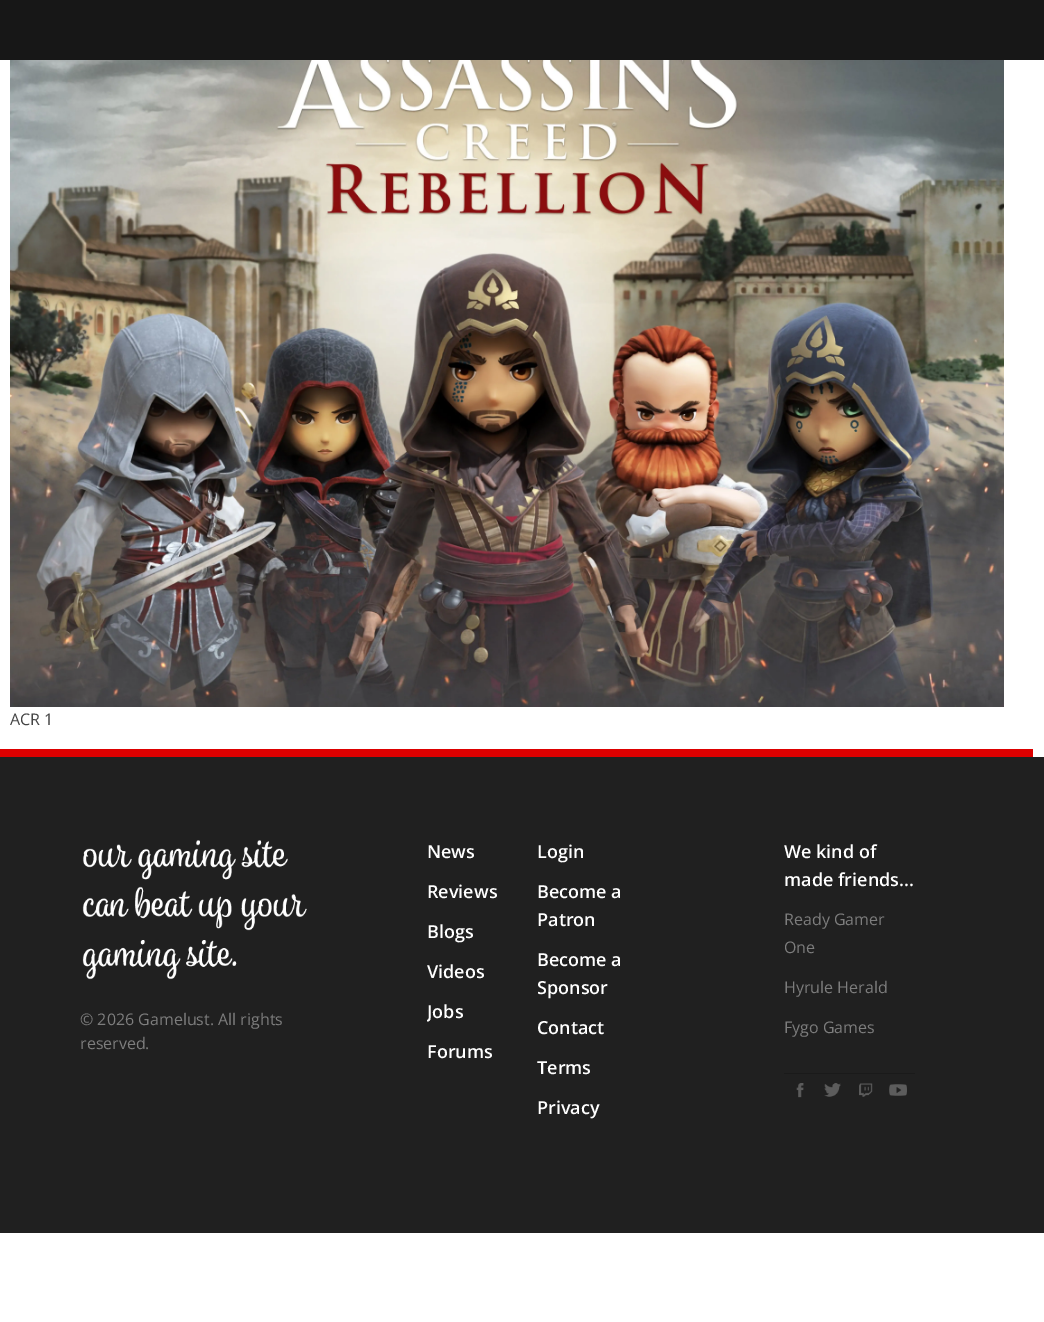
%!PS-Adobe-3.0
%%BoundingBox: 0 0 1044 1322
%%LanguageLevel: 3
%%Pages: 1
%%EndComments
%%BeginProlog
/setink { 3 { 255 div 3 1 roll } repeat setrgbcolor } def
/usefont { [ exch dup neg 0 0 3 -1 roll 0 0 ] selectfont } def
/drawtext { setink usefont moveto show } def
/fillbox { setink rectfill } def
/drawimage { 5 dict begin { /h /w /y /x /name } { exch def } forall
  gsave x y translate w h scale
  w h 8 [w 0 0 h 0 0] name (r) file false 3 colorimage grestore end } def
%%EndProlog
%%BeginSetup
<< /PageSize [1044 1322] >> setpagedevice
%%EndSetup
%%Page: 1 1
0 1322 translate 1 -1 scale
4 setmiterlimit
0 0 1044 1322 255 255 255 fillbox
0 0 1044 60 23 23 23 fillbox
0 749 1033 8 221 0 0 fillbox
(assets/img1.rgb) 10 60 994 647 drawimage
(ACR 1) 10 725 /OpenSans-Regular 16 68 68 68 drawtext
0 757 1044 476 32 32 32 fillbox
(assets/img2.rgb) 82 840 225 140 drawimage
(© 2026 Gamelust. All rights) 80 1025 /OpenSans-Regular 16 125 125 125 drawtext
(reserved.) 80 1049 /OpenSans-Regular 16 125 125 125 drawtext
(News) 427 858 /OpenSans-SemiBold 18 255 255 255 drawtext
(Reviews) 427 898 /OpenSans-SemiBold 18 255 255 255 drawtext
(Blogs) 427 938 /OpenSans-SemiBold 18 255 255 255 drawtext
(Videos) 427 978 /OpenSans-SemiBold 18 255 255 255 drawtext
gsave
427 997 90 28 rectclip
(Jobs) 427 1018 /OpenSans-SemiBold 18 255 255 255 drawtext
grestore
(Forums) 427 1058 /OpenSans-SemiBold 18 255 255 255 drawtext
(Login) 537 858 /OpenSans-SemiBold 18 255 255 255 drawtext
(Become a) 537 898 /OpenSans-SemiBold 18 255 255 255 drawtext
(Patron) 537 926 /OpenSans-SemiBold 18 255 255 255 drawtext
(Become a) 537 966 /OpenSans-SemiBold 18 255 255 255 drawtext
(Sponsor) 537 994 /OpenSans-SemiBold 18 255 255 255 drawtext
(Contact) 537 1034 /OpenSans-SemiBold 18 255 255 255 drawtext
(Terms) 537 1074 /OpenSans-SemiBold 18 255 255 255 drawtext
(Privacy) 537 1114 /OpenSans-SemiBold 18 255 255 255 drawtext
(We kind of) 784 858 /OpenSans-SemiBold 18 255 255 255 drawtext
(made friends...) 784 886 /OpenSans-SemiBold 18 255 255 255 drawtext
(Ready Gamer) 784 925 /OpenSans-Regular 16 125 125 125 drawtext
(One) 784 953 /OpenSans-Regular 16 125 125 125 drawtext
(Hyrule Herald) 784 993 /OpenSans-Regular 16 125 125 125 drawtext
(Fygo Games) 784 1033 /OpenSans-Regular 16 125 125 125 drawtext
784 1073 131 1 26 26 26 fillbox
(assets/img3.rgb) 796 1083 8 15 drawimage
(assets/img4.rgb) 824 1083 17 14 drawimage
(assets/img5.rgb) 859 1083 14 14 drawimage
(assets/img6.rgb) 889 1084 18 12 drawimage
showpage
%%EOF
